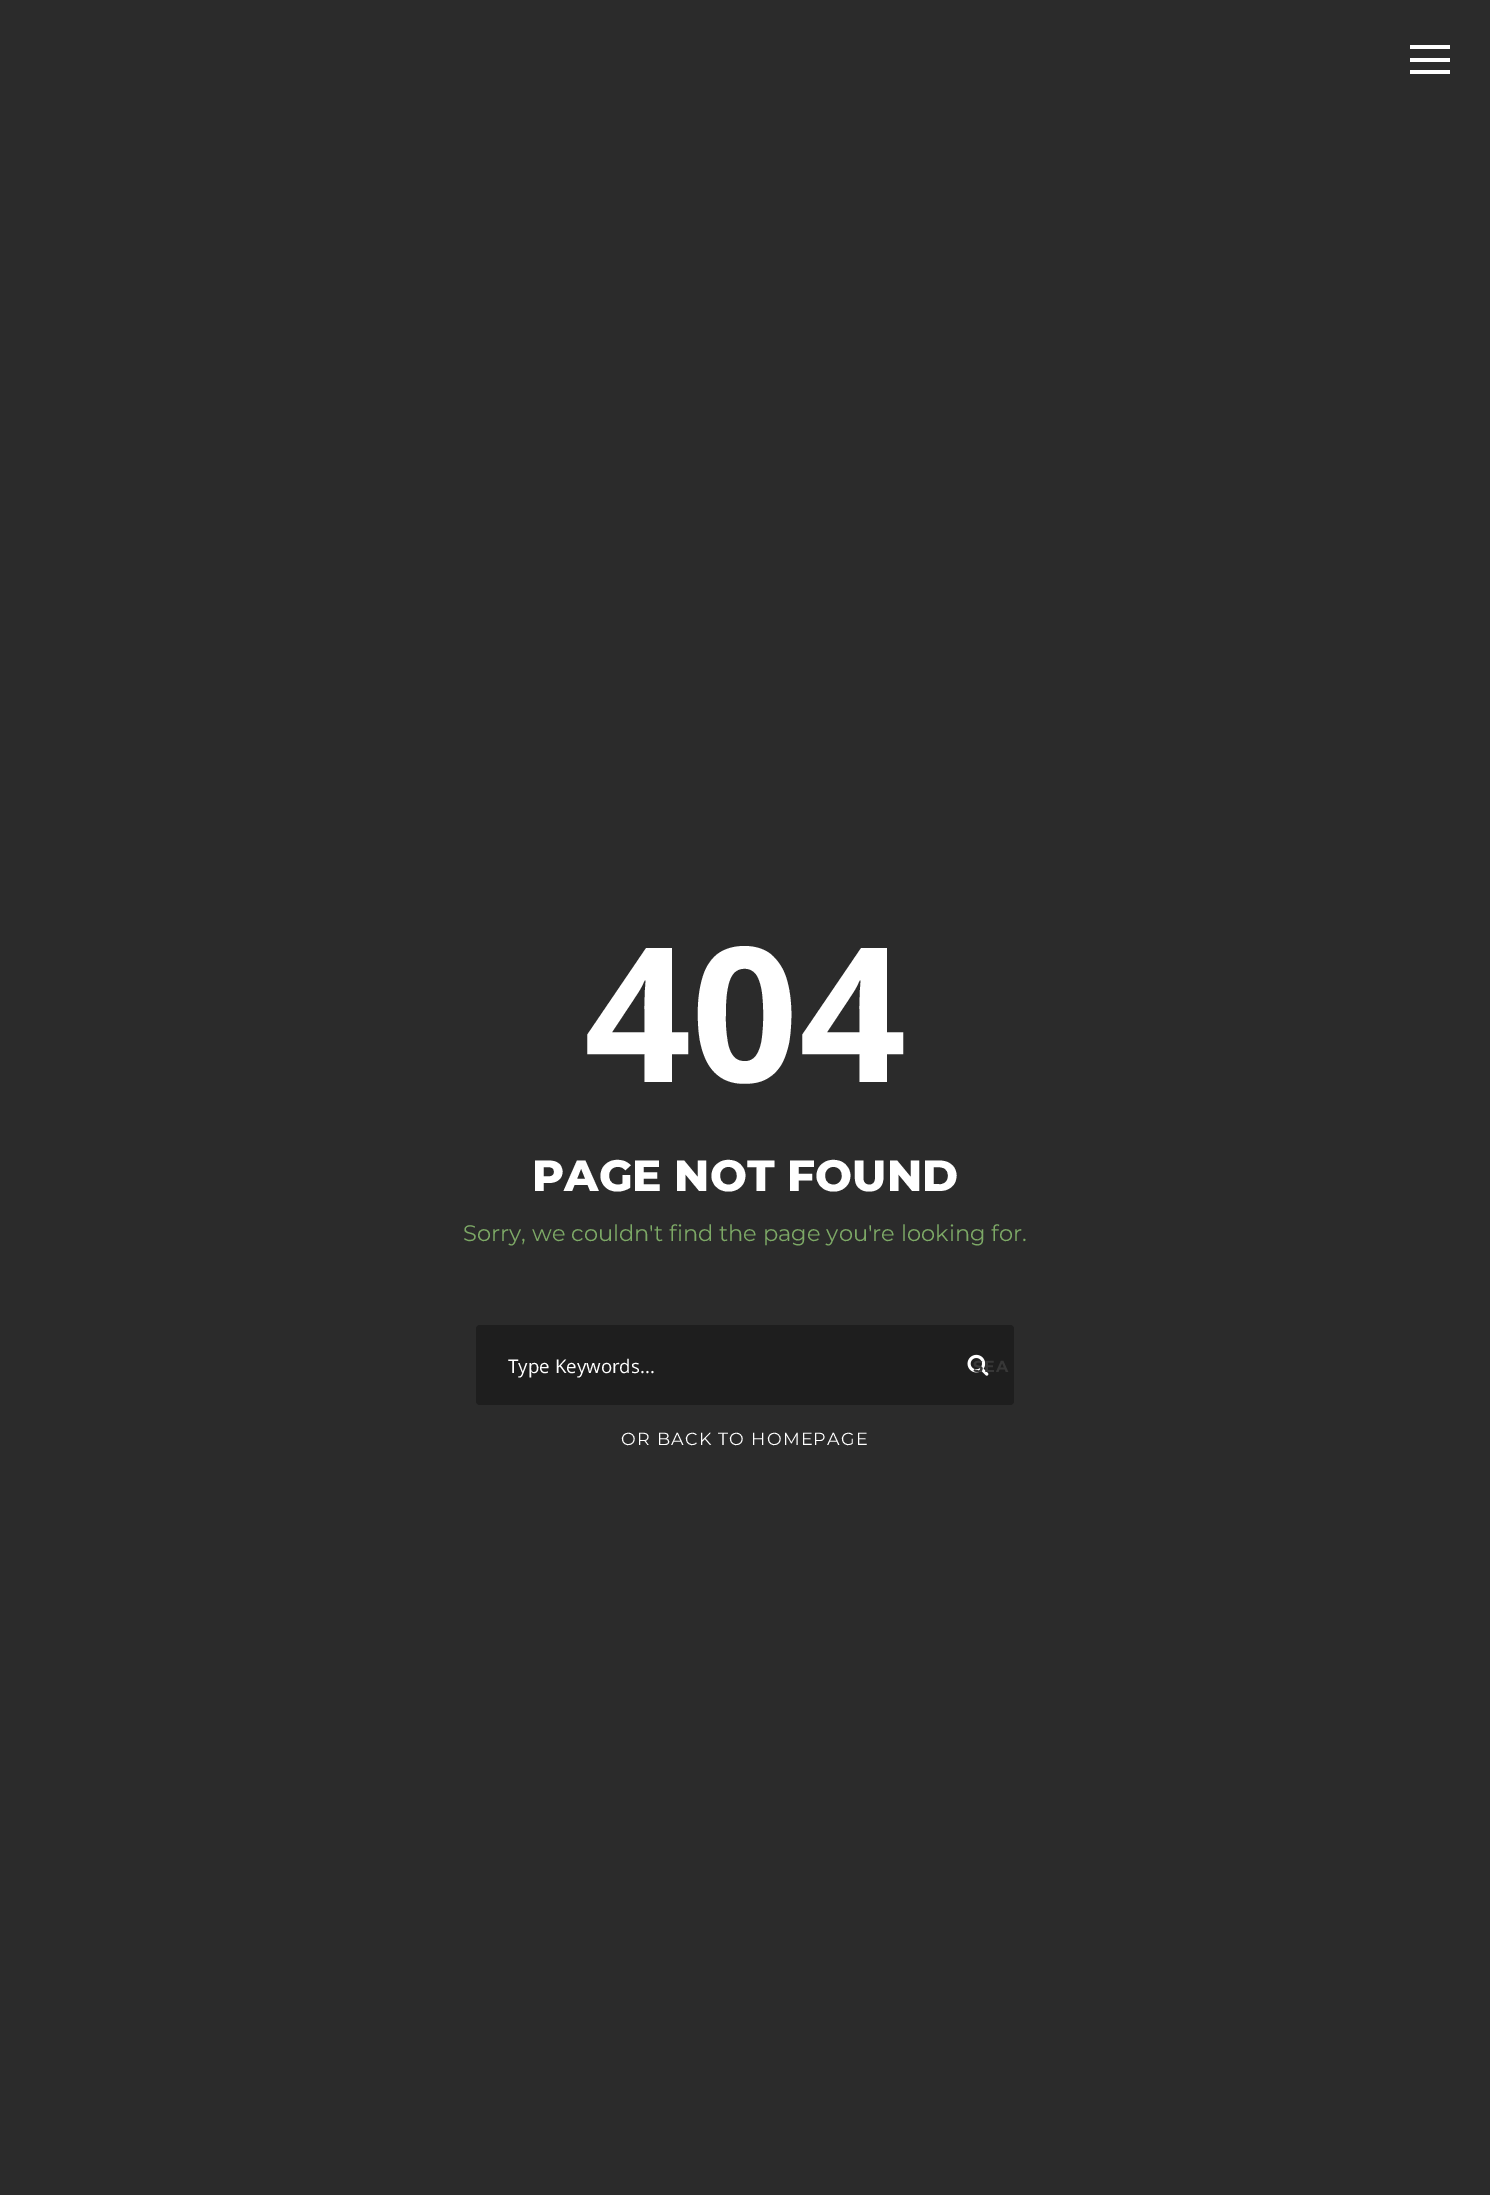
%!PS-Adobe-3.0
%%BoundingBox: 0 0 1490 2195
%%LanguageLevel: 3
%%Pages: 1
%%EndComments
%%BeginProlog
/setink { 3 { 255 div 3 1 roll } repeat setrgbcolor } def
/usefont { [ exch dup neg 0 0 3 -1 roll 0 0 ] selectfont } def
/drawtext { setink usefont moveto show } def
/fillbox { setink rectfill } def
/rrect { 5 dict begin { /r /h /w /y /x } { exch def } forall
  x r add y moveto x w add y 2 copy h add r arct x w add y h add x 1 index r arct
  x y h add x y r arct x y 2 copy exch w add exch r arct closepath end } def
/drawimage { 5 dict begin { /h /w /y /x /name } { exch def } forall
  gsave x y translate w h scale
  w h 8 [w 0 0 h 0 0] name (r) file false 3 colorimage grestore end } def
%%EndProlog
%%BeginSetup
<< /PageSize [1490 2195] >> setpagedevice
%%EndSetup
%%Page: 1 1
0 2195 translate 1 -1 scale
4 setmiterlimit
0 0 1490 2195 43 43 43 fillbox
1410 45 40 4 255 255 255 fillbox
1410 58 40 4 255 255 255 fillbox
1410 70 40 4 255 255 255 fillbox
(404) 584 1082 /OpenSans-Bold 188 255 255 255 drawtext
(PAGE NOT FOUND) 532 1191 /Montserrat-ExtraBold 43.75 255 255 255 drawtext
(Sorry, we couldn't find the page you're looking for.) 463 1241 /Montserrat-Regular 22.5 125 169 102 drawtext
30 30 30 setink
476 1325 538 80 4 rrect fill
(Type Keywords...) 508 1373 /OpenSans-Regular 18.75 255 255 255 drawtext
(assets/img1.rgb) 967 1354 22 22 drawimage
/Montserrat-Bold 16 usefont
55 55 55 setink
973 1372 moveto 1 0 (SEA) ashow
/Montserrat-Regular 17.5 usefont
255 255 255 setink
621 1445 moveto 1.25 0 (OR BACK TO HOMEPAGE) ashow
showpage
%%EOF
